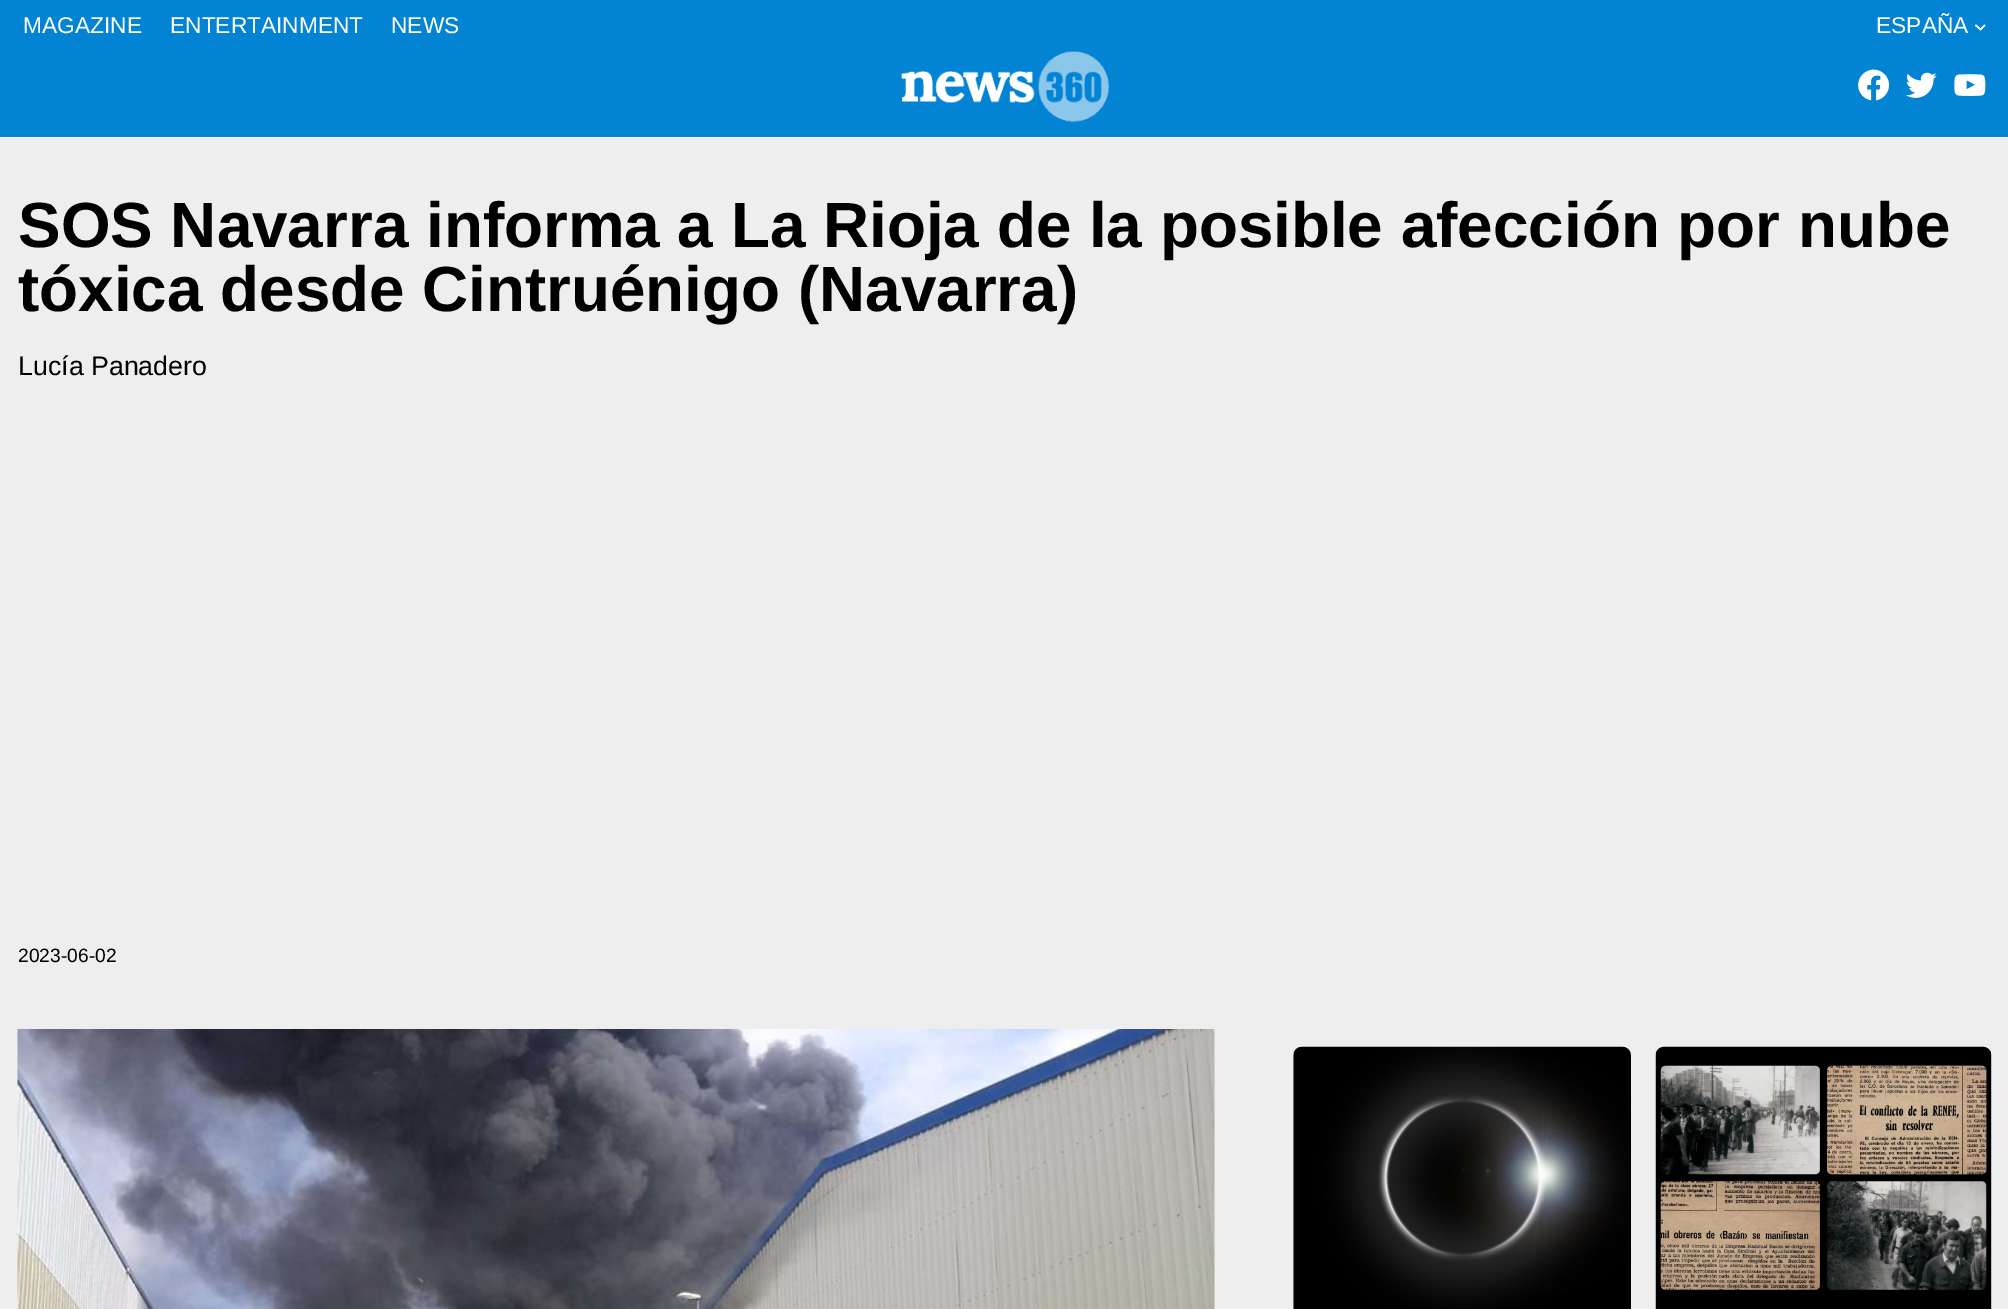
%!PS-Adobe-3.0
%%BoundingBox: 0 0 2008 1309
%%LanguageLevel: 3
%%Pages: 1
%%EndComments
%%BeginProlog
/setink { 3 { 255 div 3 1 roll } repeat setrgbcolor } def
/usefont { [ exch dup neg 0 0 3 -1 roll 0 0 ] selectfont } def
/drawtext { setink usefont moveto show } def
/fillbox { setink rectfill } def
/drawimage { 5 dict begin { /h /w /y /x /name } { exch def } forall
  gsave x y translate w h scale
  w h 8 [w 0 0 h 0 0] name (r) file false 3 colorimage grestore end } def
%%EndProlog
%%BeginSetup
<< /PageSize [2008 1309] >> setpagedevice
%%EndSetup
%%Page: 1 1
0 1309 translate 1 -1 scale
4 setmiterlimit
0 0 2008 1309 2 131 212 fillbox
(MAGAZINE) 23 33 /LiberationSans-Regular 22.75 255 255 255 drawtext
(ENTERTAINMENT) 170 33 /LiberationSans-Regular 22.75 255 255 255 drawtext
(NEWS) 391 33 /LiberationSans-Regular 22.75 255 255 255 drawtext
(ESPAÑA) 1876 33 /LiberationSans-Regular 22.75 255 255 255 drawtext
1.6 setlinewidth
1975.5 25 moveto 1980.5 29.5 lineto 1985 25 lineto stroke
(assets/img1.rgb) 901 50 209 72 drawimage
(assets/img2.rgb) 1858 69 32 32 drawimage
(assets/img3.rgb) 1906 72 31 26 drawimage
(assets/img4.rgb) 1954 74 32 22 drawimage
0 137 2008 1 255 255 255 fillbox
0 138 2008 1171 238 238 238 fillbox
(SOS Navarra informa a La Rioja de la posible afección por nube) 18 247 /LiberationSans-Bold 63.8 0 0 0 drawtext
(tóxica desde Cintruénigo \(Navarra\)) 18 311 /LiberationSans-Bold 63.8 0 0 0 drawtext
(Lucía Panadero) 18 375 /LiberationSans-Regular 26.75 0 0 0 drawtext
(2023-06-02) 18 962 /LiberationSans-Regular 19.25 0 0 0 drawtext
(assets/img5.rgb) 17 1029 1198 280 drawimage
255 255 255 setink
1293 1309 moveto 1293 1055 lineto 1293 1051 1296 1048 1299 1047 curveto 1625 1047 lineto 1629 1048 1631 1051 1631 1055 curveto 1631 1309 lineto closepath fill
(assets/img6.rgb) 1293 1046 338 263 drawimage
1656 1052 moveto 1657 1050 1659 1048 1661 1047 curveto 1986 1047 lineto 1989 1048 1992 1051 1992 1055 curveto 1992 1309 lineto 1656 1309 lineto closepath fill
(assets/img7.rgb) 1655 1046 337 263 drawimage
showpage
%%EOF
